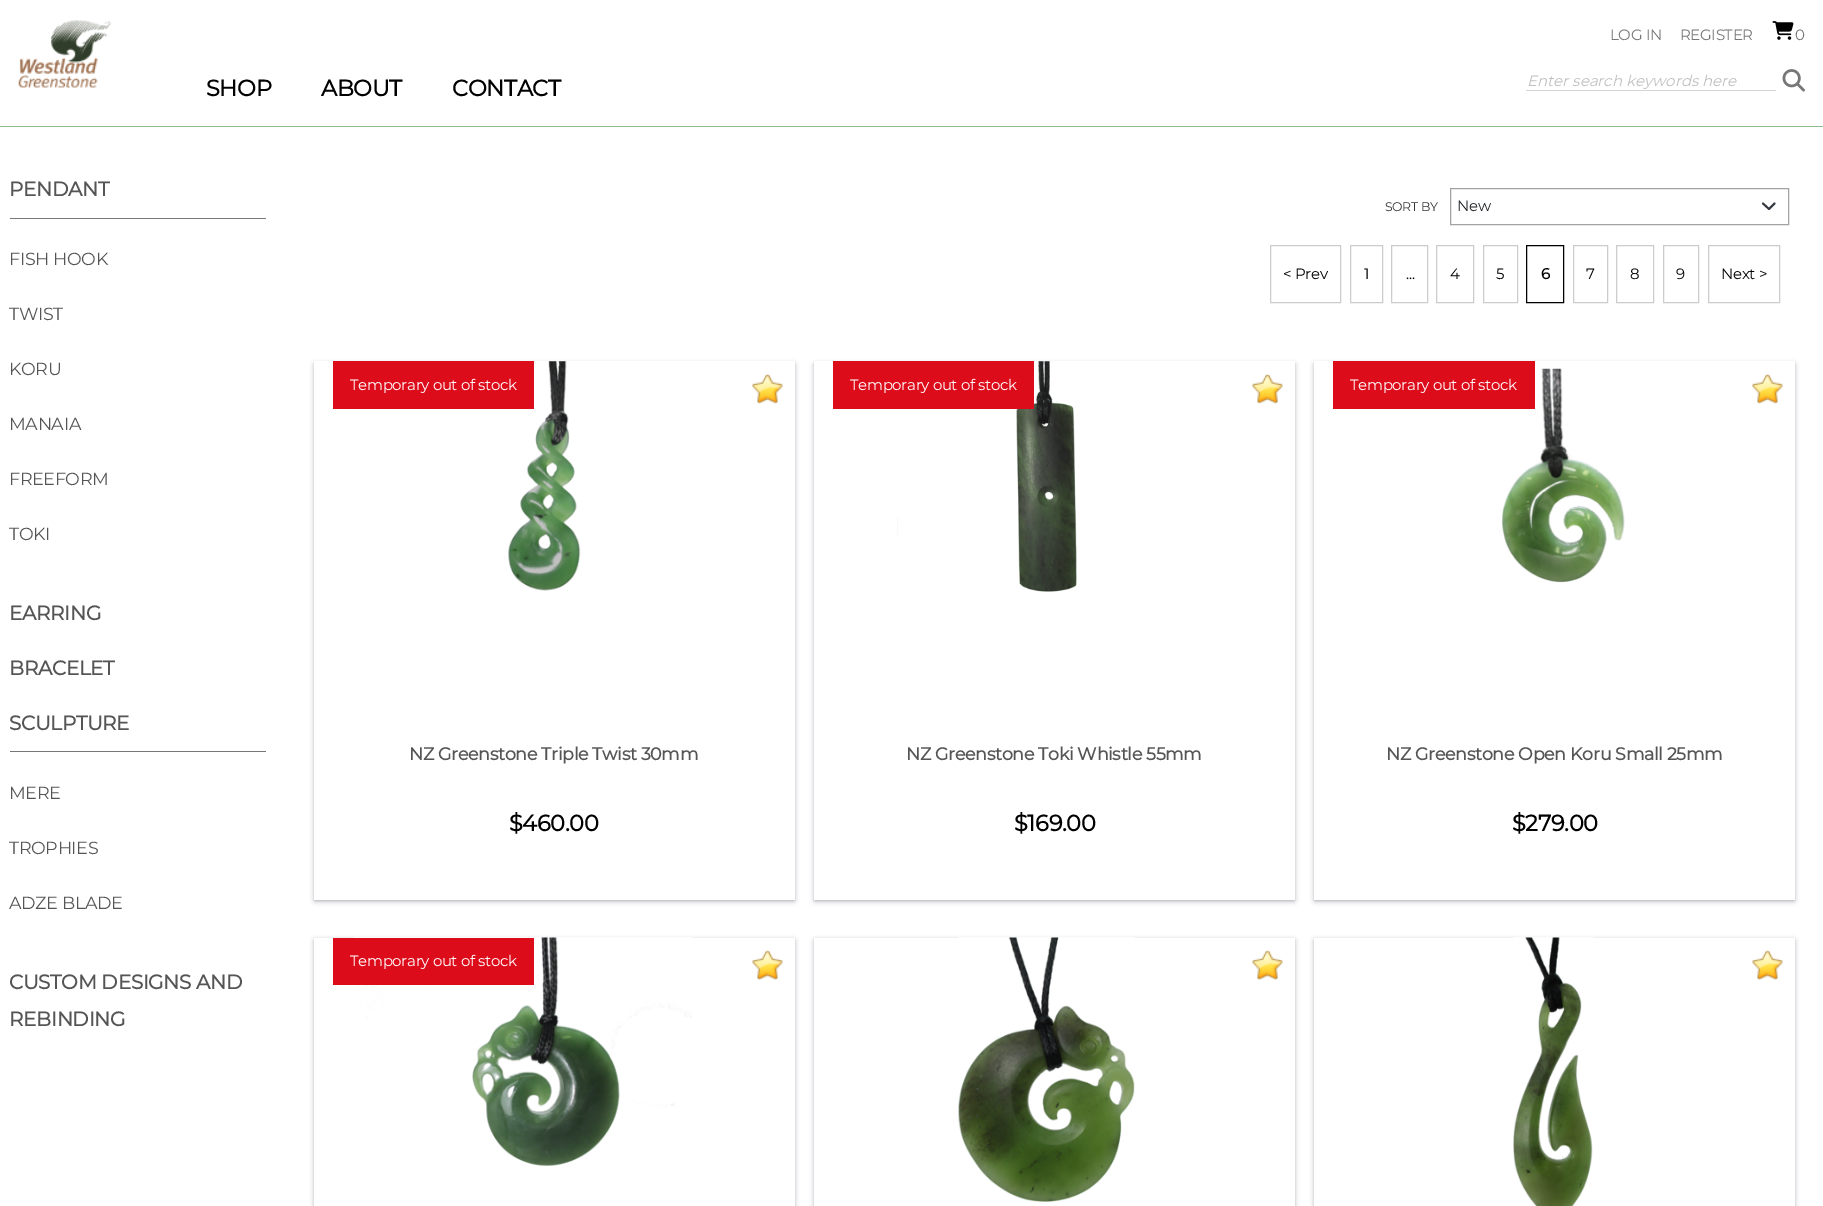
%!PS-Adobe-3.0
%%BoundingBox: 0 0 1823 1206
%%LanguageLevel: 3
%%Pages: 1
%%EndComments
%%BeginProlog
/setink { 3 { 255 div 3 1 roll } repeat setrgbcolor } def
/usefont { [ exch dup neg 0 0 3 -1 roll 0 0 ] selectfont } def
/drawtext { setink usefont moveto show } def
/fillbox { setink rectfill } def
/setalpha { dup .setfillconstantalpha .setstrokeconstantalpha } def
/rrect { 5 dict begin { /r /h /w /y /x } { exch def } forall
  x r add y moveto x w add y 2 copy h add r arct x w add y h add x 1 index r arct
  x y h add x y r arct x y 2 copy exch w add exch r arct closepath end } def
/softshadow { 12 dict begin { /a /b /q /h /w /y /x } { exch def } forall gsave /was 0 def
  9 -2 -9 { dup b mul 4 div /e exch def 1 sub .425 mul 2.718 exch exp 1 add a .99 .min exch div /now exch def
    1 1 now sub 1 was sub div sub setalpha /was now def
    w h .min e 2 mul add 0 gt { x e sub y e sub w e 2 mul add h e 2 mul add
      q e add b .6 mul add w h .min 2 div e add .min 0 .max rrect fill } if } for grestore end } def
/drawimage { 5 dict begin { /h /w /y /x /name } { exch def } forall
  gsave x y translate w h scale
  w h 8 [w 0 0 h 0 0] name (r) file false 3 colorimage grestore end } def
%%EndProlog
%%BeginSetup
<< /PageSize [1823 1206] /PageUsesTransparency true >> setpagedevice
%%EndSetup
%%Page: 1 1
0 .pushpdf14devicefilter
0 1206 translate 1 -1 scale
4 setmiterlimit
0 0 1823 1206 255 255 255 fillbox
(assets/img1.rgb) 18 20 94 68 drawimage
/Montserrat-Thin 15 usefont
119 119 119 setink
1610 40 moveto -0.35 0 (LOG IN) ashow
1680 40 moveto -0.35 0 (REGISTER) ashow
(assets/img2.rgb) 1772 21 22 19 drawimage
1795 40 moveto -0.35 0 (0) ashow
0 126 1823 1 143 188 143 fillbox
/Montserrat-Bold 22.5 usefont
0 0 0 setink
206 96 moveto -0.35 0 (SHOP) ashow
321 96 moveto -0.35 0 (ABOUT) ashow
452 96 moveto -0.35 0 (CONTACT) ashow
1526 90 250 1 213 213 213 fillbox
(Enter search keywords here) 1527 86 /Montserrat-ThinItalic 15 192 192 192 drawtext
(assets/img3.rgb) 1782 69 23 23 drawimage
/Montserrat-Bold 20 usefont
85 85 85 setink
9 196 moveto -0.35 0 (PENDANT) ashow
10 218 256 1 119 119 119 fillbox
/Montserrat-Thin 17.5 usefont
85 85 85 setink
9 265 moveto -0.35 0 (FISH HOOK) ashow
9 320 moveto -0.35 0 (TWIST) ashow
9 375 moveto -0.35 0 (KORU) ashow
9 430 moveto -0.35 0 (MANAIA) ashow
9 485 moveto -0.35 0 (FREEFORM) ashow
9 540 moveto -0.35 0 (TOKI) ashow
/Montserrat-Bold 20 usefont
9 620 moveto -0.35 0 (EARRING) ashow
9 675 moveto -0.35 0 (BRACELET) ashow
9 730 moveto -0.35 0 (SCULPTURE) ashow
10 751 256 1 119 119 119 fillbox
/Montserrat-Thin 17.5 usefont
85 85 85 setink
9 799 moveto -0.35 0 (MERE) ashow
9 854 moveto -0.35 0 (TROPHIES) ashow
9 909 moveto -0.35 0 (ADZE BLADE) ashow
/Montserrat-Bold 20 usefont
9 989 moveto -0.35 0 (CUSTOM DESIGNS AND) ashow
9 1026 moveto -0.35 0 (REBINDING) ashow
/Montserrat-Thin 12.5 usefont
51 51 51 setink
1385 211 moveto -0.35 0 (SORT BY) ashow
52 58 64 setink
1.9 setlinewidth
1 setlinecap
1 setlinejoin
1763 203.5 moveto 1769 209 lineto 1774.5 203.5 lineto stroke
163 163 163 setink
1 setlinewidth
0 setlinecap
0 setlinejoin
1450.5 188.5 338 36 rectstroke
(New) 1457 211 /Montserrat-Thin 15 33 37 41 drawtext
204 204 204 setink
1270.5 245.5 70 57 rectstroke
0 0 0 setink
1283 279 moveto -0.35 0 (< Prev) ashow
204 204 204 setink
1350.5 245.5 32 57 rectstroke
0 0 0 setink
1364 279 moveto -0.35 0 (1) ashow
204 204 204 setink
1391.5 245.5 36 57 rectstroke
0 0 0 setink
1406 279 moveto -0.35 0 (...) ashow
204 204 204 setink
1436.5 245.5 37 57 rectstroke
0 0 0 setink
1450 279 moveto -0.35 0 (4) ashow
204 204 204 setink
1483.5 245.5 34 57 rectstroke
0 0 0 setink
1496 279 moveto -0.35 0 (5) ashow
1526.5 245.5 37 57 rectstroke
/Montserrat-Bold 15 usefont
1541 279 moveto -0.35 0 (6) ashow
204 204 204 setink
1573.5 245.5 34 57 rectstroke
/Montserrat-Thin 15 usefont
0 0 0 setink
1586 279 moveto -0.35 0 (7) ashow
204 204 204 setink
1616.5 245.5 37 57 rectstroke
0 0 0 setink
1630 279 moveto -0.35 0 (8) ashow
204 204 204 setink
1663.5 245.5 35 57 rectstroke
0 0 0 setink
1676 279 moveto -0.35 0 (9) ashow
204 204 204 setink
1708.5 245.5 71 57 rectstroke
0 0 0 setink
1721 279 moveto -0.35 0 (Next >) ashow
gsave
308 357 moveto 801 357 lineto 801 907 lineto 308 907 lineto closepath 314 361 moveto 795 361 lineto 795 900 lineto 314 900 lineto closepath eoclip newpath
315 364 479 536 0 2 0.3 softshadow
grestore
gsave
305 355 moveto 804 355 lineto 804 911 lineto 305 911 lineto closepath 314 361 moveto 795 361 lineto 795 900 lineto 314 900 lineto closepath eoclip newpath
50 50 93 setink
315 365 479 536 0 3 0.25 softshadow
grestore
(assets/img4.rgb) 508 361 73 230 drawimage
333 361 201 48 221 12 27 fillbox
255 255 255 setink
350 390 moveto -0.35 0 (Temporary out of stock) ashow
(assets/img5.rgb) 752 373 31 31 drawimage
/Montserrat-Bold 17.5 usefont
85 85 85 setink
409 760 moveto -0.35 0 (NZ Greenstone Triple Twist 30mm) ashow
/Montserrat-Bold 22.5 usefont
0 0 0 setink
509 831 moveto -0.35 0 ($460.00) ashow
gsave
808 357 moveto 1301 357 lineto 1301 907 lineto 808 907 lineto closepath 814 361 moveto 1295 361 lineto 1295 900 lineto 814 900 lineto closepath eoclip newpath
815 364 479 536 0 2 0.3 softshadow
grestore
gsave
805 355 moveto 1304 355 lineto 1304 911 lineto 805 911 lineto closepath 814 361 moveto 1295 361 lineto 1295 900 lineto 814 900 lineto closepath eoclip newpath
50 50 93 setink
815 365 479 536 0 3 0.25 softshadow
grestore
(assets/img6.rgb) 897 361 180 231 drawimage
833 361 201 48 221 12 27 fillbox
/Montserrat-Thin 15 usefont
255 255 255 setink
850 390 moveto -0.35 0 (Temporary out of stock) ashow
(assets/img7.rgb) 1252 373 31 31 drawimage
/Montserrat-Bold 17.5 usefont
85 85 85 setink
906 760 moveto -0.35 0 (NZ Greenstone Toki Whistle 55mm) ashow
/Montserrat-Bold 22.5 usefont
0 0 0 setink
1014 831 moveto -0.35 0 ($169.00) ashow
gsave
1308 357 moveto 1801 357 lineto 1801 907 lineto 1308 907 lineto closepath 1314 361 moveto 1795 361 lineto 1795 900 lineto 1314 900 lineto closepath eoclip newpath
1315 364 479 536 0 2 0.3 softshadow
grestore
gsave
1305 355 moveto 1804 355 lineto 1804 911 lineto 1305 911 lineto closepath 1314 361 moveto 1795 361 lineto 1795 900 lineto 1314 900 lineto closepath eoclip newpath
50 50 93 setink
1315 365 479 536 0 3 0.25 softshadow
grestore
(assets/img8.rgb) 1499 368 126 215 drawimage
1333 361 202 48 221 12 27 fillbox
/Montserrat-Thin 15 usefont
255 255 255 setink
1350 390 moveto -0.35 0 (Temporary out of stock) ashow
(assets/img5.rgb) 1752 373 31 31 drawimage
/Montserrat-Bold 17.5 usefont
85 85 85 setink
1386 760 moveto -0.35 0 (NZ Greenstone Open Koru Small 25mm) ashow
/Montserrat-Bold 22.5 usefont
0 0 0 setink
1512 831 moveto -0.35 0 ($279.00) ashow
gsave
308 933 moveto 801 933 lineto 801 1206 lineto 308 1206 lineto closepath 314 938 moveto 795 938 lineto 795 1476 lineto 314 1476 lineto closepath eoclip newpath
315 940 479 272 0 2 0.3 softshadow
grestore
gsave
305 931 moveto 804 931 lineto 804 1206 lineto 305 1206 lineto closepath 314 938 moveto 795 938 lineto 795 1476 lineto 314 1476 lineto closepath eoclip newpath
50 50 93 setink
315 941 479 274 0 3 0.25 softshadow
grestore
(assets/img9.rgb) 354 937 338 229 drawimage
333 938 201 47 221 12 27 fillbox
/Montserrat-Thin 15 usefont
255 255 255 setink
350 966 moveto -0.35 0 (Temporary out of stock) ashow
(assets/img10.rgb) 752 950 31 30 drawimage
gsave
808 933 moveto 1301 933 lineto 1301 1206 lineto 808 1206 lineto closepath 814 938 moveto 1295 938 lineto 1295 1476 lineto 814 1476 lineto closepath eoclip newpath
0 0 0 setink
815 940 479 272 0 2 0.3 softshadow
grestore
gsave
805 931 moveto 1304 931 lineto 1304 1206 lineto 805 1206 lineto closepath 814 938 moveto 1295 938 lineto 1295 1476 lineto 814 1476 lineto closepath eoclip newpath
50 50 93 setink
815 941 479 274 0 3 0.25 softshadow
grestore
(assets/img11.rgb) 958 937 177 265 drawimage
(assets/img12.rgb) 1252 950 31 30 drawimage
gsave
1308 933 moveto 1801 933 lineto 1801 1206 lineto 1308 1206 lineto closepath 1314 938 moveto 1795 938 lineto 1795 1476 lineto 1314 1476 lineto closepath eoclip newpath
0 0 0 setink
1315 940 479 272 0 2 0.3 softshadow
grestore
gsave
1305 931 moveto 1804 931 lineto 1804 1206 lineto 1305 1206 lineto closepath 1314 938 moveto 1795 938 lineto 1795 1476 lineto 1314 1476 lineto closepath eoclip newpath
50 50 93 setink
1315 941 479 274 0 3 0.25 softshadow
grestore
(assets/img13.rgb) 1513 937 80 269 drawimage
(assets/img10.rgb) 1752 950 31 30 drawimage
.poppdf14devicefilter showpage
%%EOF
